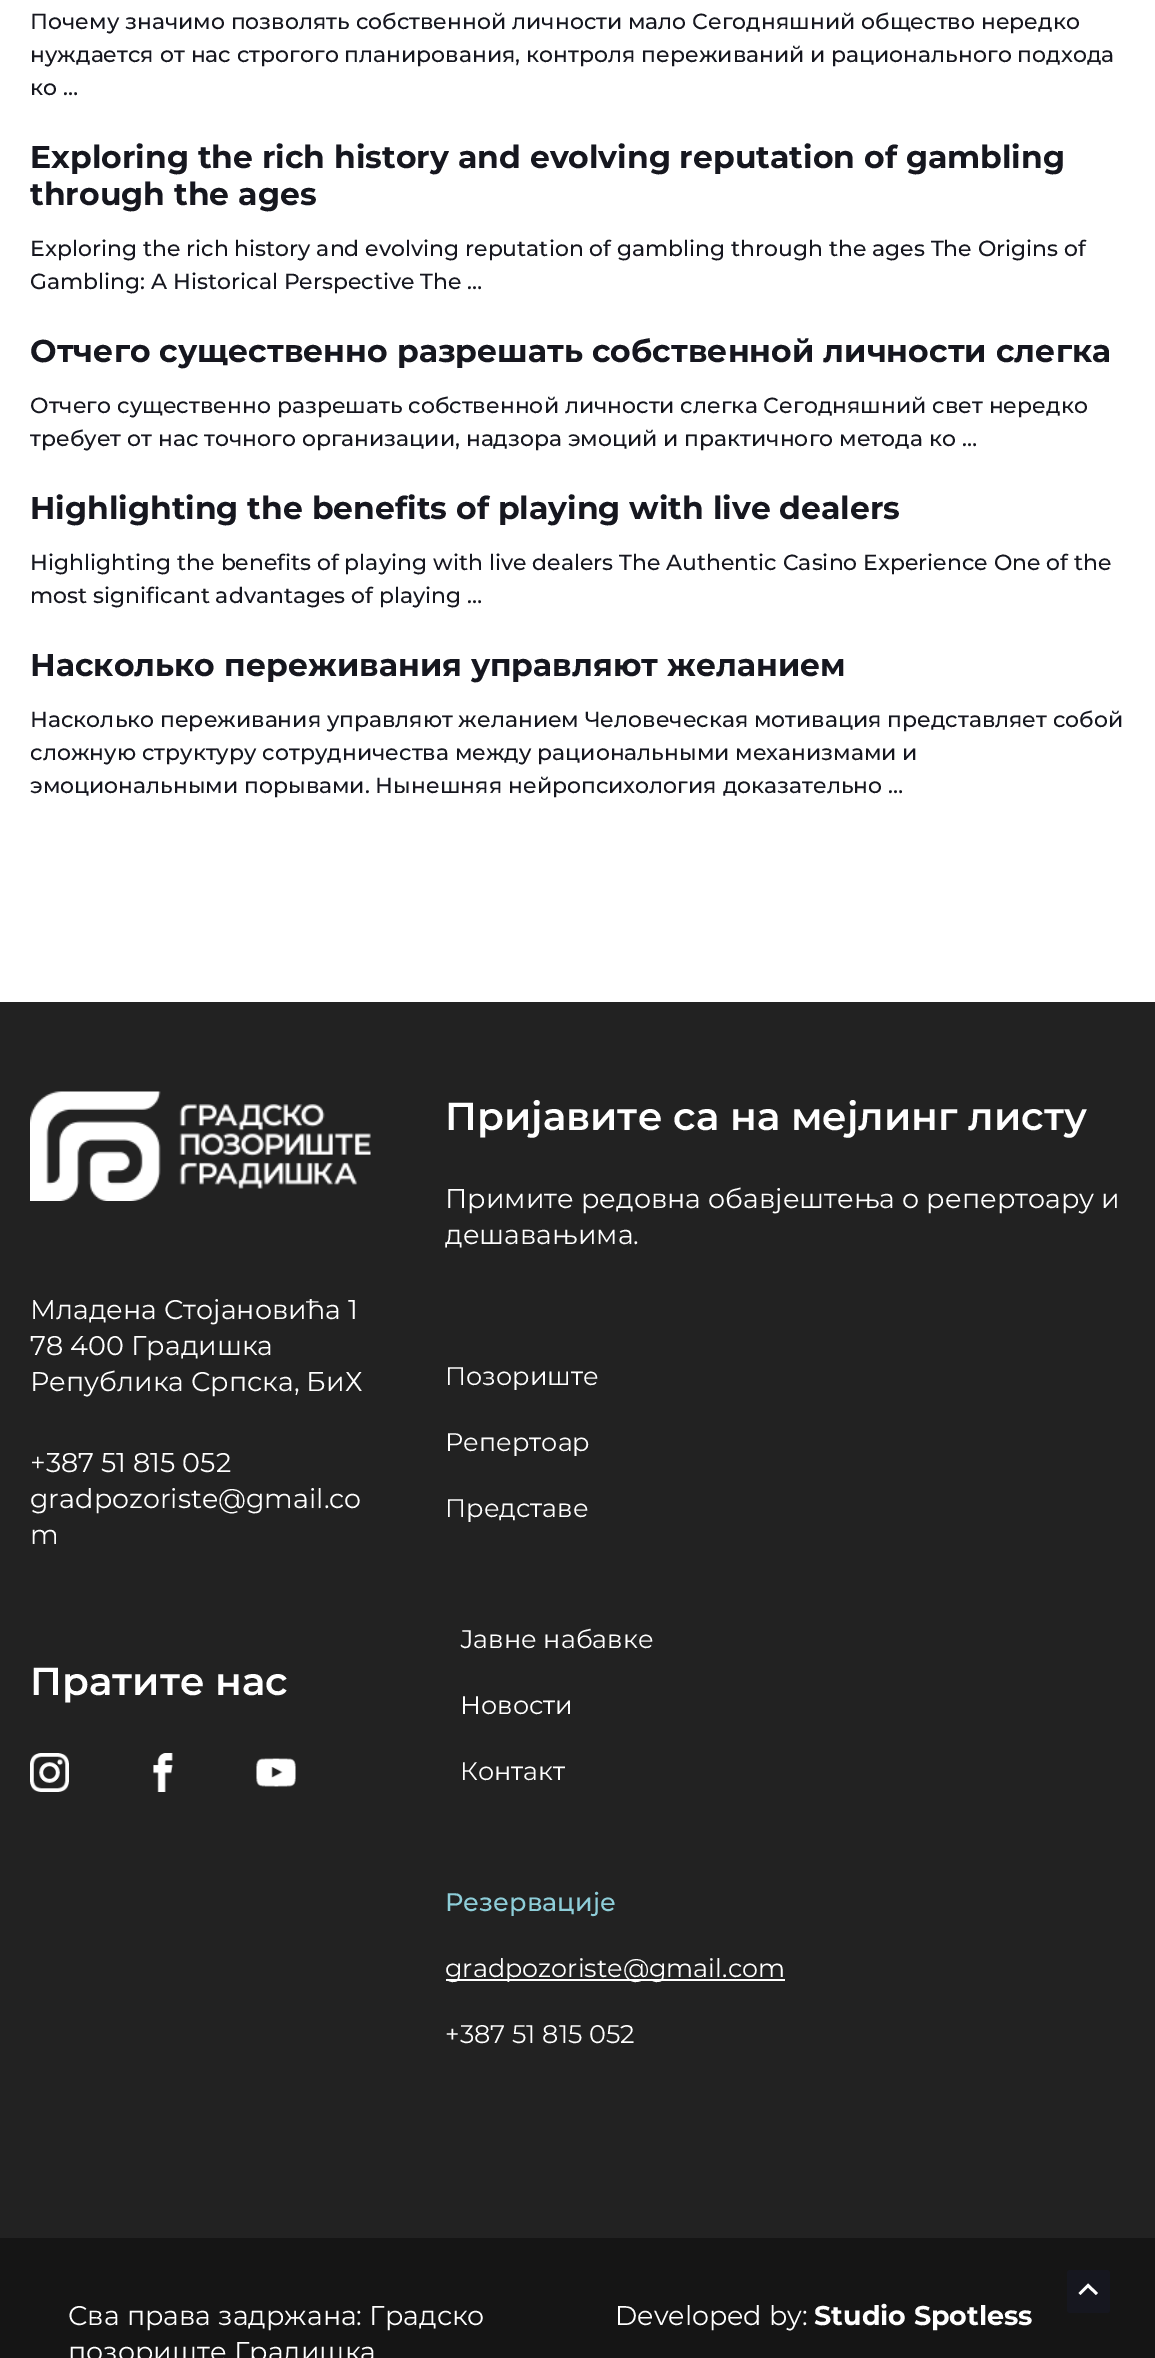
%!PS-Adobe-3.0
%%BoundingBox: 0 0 1155 2358
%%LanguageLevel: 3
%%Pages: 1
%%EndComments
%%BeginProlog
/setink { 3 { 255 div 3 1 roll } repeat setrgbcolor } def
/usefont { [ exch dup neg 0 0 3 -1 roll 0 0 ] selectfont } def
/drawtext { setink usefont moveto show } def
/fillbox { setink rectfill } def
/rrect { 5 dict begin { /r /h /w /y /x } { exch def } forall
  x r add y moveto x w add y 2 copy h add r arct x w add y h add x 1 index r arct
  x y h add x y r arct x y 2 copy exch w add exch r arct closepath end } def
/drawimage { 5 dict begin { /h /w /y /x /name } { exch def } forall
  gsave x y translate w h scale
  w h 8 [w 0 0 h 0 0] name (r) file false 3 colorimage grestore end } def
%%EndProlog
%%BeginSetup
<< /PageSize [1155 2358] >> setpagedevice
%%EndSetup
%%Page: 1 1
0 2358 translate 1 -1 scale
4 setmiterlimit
0 0 1155 2358 255 255 255 fillbox
(Почему значимо позволять собственной личности мало Сегодняшний общество нередко) 30 29 /Montserrat-Medium 21.9 22 23 31 drawtext
(нуждается от нас строгого планирования, контроля переживаний и рационального подхода) 30 62 /Montserrat-Medium 21.9 22 23 31 drawtext
(ко …) 30 95 /Montserrat-Medium 21.9 22 23 31 drawtext
(Exploring the rich history and evolving reputation of gambling) 30 168 /Montserrat-Bold 31.5 22 23 31 drawtext
(through the ages) 30 205 /Montserrat-Bold 31.5 22 23 31 drawtext
(Exploring the rich history and evolving reputation of gambling through the ages The Origins of) 30 256 /Montserrat-Medium 21.9 22 23 31 drawtext
(Gambling: A Historical Perspective The …) 30 289 /Montserrat-Medium 21.9 22 23 31 drawtext
(Отчего существенно разрешать собственной личности слегка) 30 362 /Montserrat-Bold 31.5 22 23 31 drawtext
(Отчего существенно разрешать собственной личности слегка Сегодняшний свет нередко) 30 413 /Montserrat-Medium 21.9 22 23 31 drawtext
(требует от нас точного организации, надзора эмоций и практичного метода ко …) 30 446 /Montserrat-Medium 21.9 22 23 31 drawtext
(Highlighting the benefits of playing with live dealers) 30 519 /Montserrat-Bold 31.5 22 23 31 drawtext
(Highlighting the benefits of playing with live dealers The Authentic Casino Experience One of the) 30 570 /Montserrat-Medium 21.9 22 23 31 drawtext
(most significant advantages of playing …) 30 603 /Montserrat-Medium 21.9 22 23 31 drawtext
(Насколько переживания управляют желанием) 30 676 /Montserrat-Bold 31.5 22 23 31 drawtext
/Montserrat-Medium 21.9 usefont
30 727 moveto -0.25 0 32 (Насколько переживания управляют желанием Человеческая мотивация представляет собой) widthshow
(сложную структуру сотрудничества между рациональными механизмами и) 30 760 /Montserrat-Medium 21.9 22 23 31 drawtext
(эмоциональными порывами. Нынешняя нейропсихология доказательно …) 30 793 /Montserrat-Medium 21.9 22 23 31 drawtext
0 2238 1155 120 21 21 21 fillbox
0 1002 1155 1236 34 34 34 fillbox
(assets/img1.rgb) 30 1091 341 110 drawimage
(Младена Стојановића 1) 30 1319 /Montserrat-Regular 27 255 255 255 drawtext
(78 400 Градишка) 30 1355 /Montserrat-Regular 27 255 255 255 drawtext
(Република Српска, БиХ) 30 1391 /Montserrat-Regular 27 255 255 255 drawtext
(+387 51 815 052) 30 1472 /Montserrat-Regular 27 255 255 255 drawtext
(gradpozoriste@gmail.co) 30 1508 /Montserrat-Regular 27 255 255 255 drawtext
(m) 30 1544 /Montserrat-Regular 27 255 255 255 drawtext
(Пратите нас) 30 1695 /Montserrat-SemiBold 39 255 255 255 drawtext
(assets/img2.rgb) 30 1753 39 39 drawimage
(assets/img3.rgb) 153 1753 20 39 drawimage
(assets/img4.rgb) 256 1758 40 29 drawimage
(Пријавите са на мејлинг листу) 445 1130 /Montserrat-SemiBold 39 255 255 255 drawtext
(Примите редовна обавјештења о репертоару и) 445 1208 /Montserrat-Regular 27 255 255 255 drawtext
(дешавањима.) 445 1244 /Montserrat-Regular 27 255 255 255 drawtext
(Позориште) 445 1385 /Montserrat-Regular 25.5 255 255 255 drawtext
(Репертоар) 445 1451 /Montserrat-Regular 25.5 255 255 255 drawtext
(Представе) 445 1517 /Montserrat-Regular 25.5 255 255 255 drawtext
(Јавне набавке) 460 1648 /Montserrat-Regular 25.5 255 255 255 drawtext
(Новости) 460 1714 /Montserrat-Regular 25.5 255 255 255 drawtext
(Контакт) 460 1780 /Montserrat-Regular 25.5 255 255 255 drawtext
(Резервације) 445 1911 /Montserrat-Medium 25.5 142 206 217 drawtext
446 1979 339 2 255 255 255 fillbox
(gradpozoriste@gmail.com) 445 1977 /Montserrat-Regular 25.5 255 255 255 drawtext
(+387 51 815 052) 445 2043 /Montserrat-Regular 25.5 255 255 255 drawtext
(Сва права задржана: Градско) 68 2325 /Montserrat-Regular 27 255 255 255 drawtext
(позориште Градишка) 68 2361 /Montserrat-Regular 27 255 255 255 drawtext
(Developed by:) 615 2325 /Montserrat-Regular 27 255 255 255 drawtext
(Studio Spotless) 814 2325 /Montserrat-Bold 27 255 255 255 drawtext
22 23 31 setink
1067 2270 43 43 3 rrect fill
255 255 255 setink
1098 2293 moveto 1088 2283.5 lineto 1078.5 2293 lineto 1080.5 2295 lineto 1088 2287.5 lineto 1096 2295 lineto closepath fill
showpage
%%EOF
